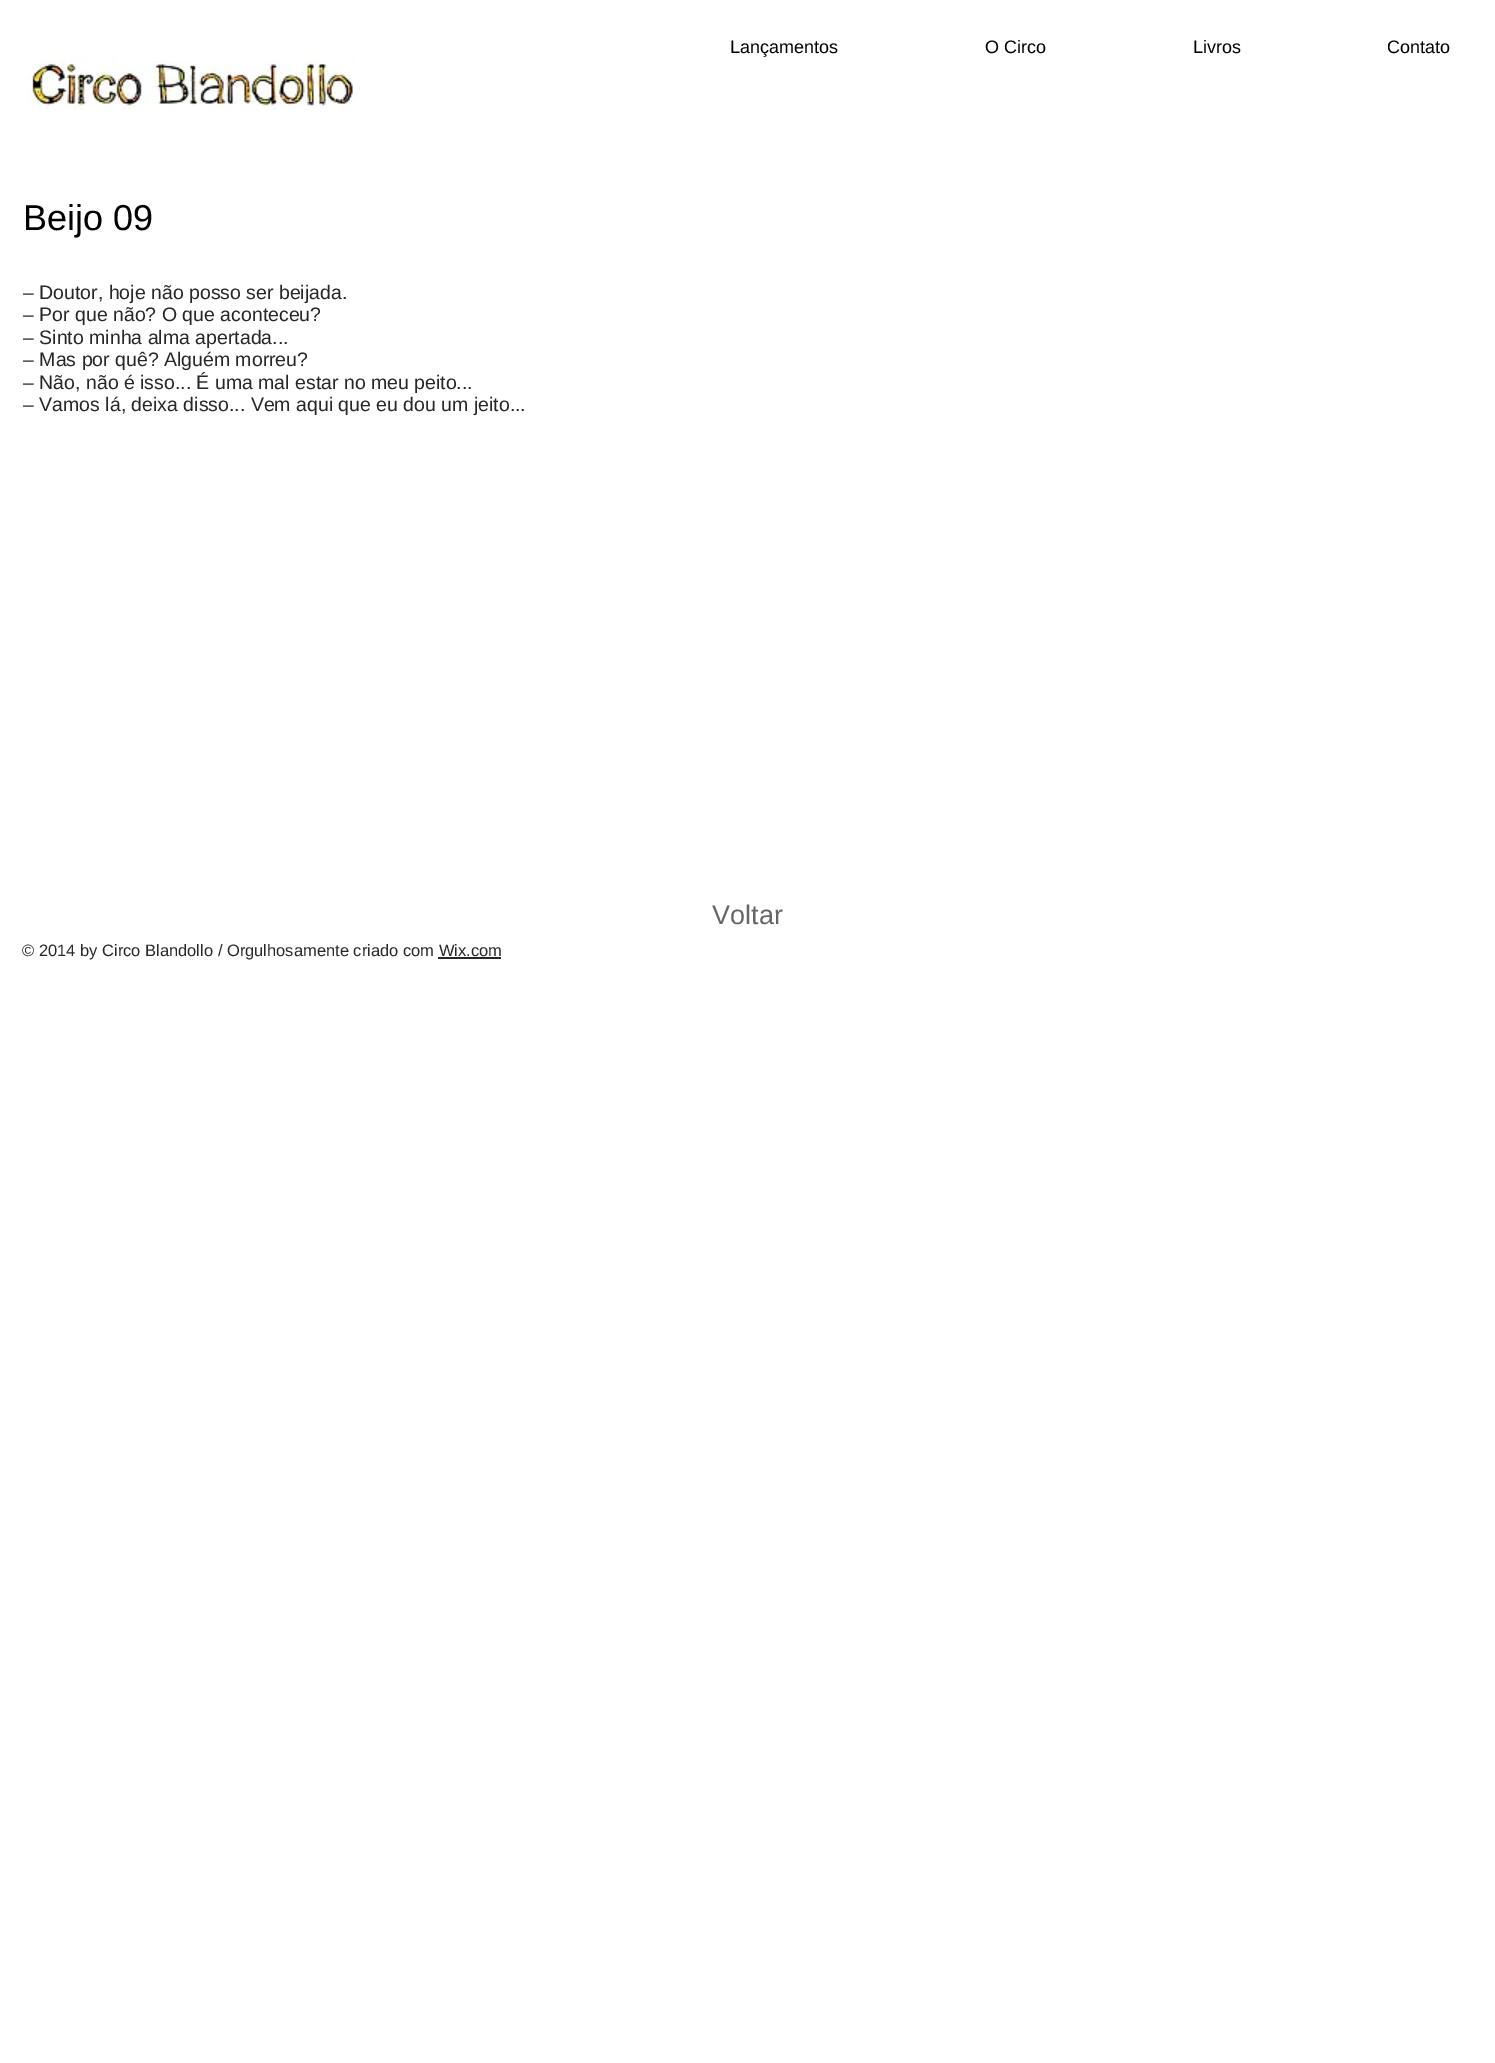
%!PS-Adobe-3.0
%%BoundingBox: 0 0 1495 2063
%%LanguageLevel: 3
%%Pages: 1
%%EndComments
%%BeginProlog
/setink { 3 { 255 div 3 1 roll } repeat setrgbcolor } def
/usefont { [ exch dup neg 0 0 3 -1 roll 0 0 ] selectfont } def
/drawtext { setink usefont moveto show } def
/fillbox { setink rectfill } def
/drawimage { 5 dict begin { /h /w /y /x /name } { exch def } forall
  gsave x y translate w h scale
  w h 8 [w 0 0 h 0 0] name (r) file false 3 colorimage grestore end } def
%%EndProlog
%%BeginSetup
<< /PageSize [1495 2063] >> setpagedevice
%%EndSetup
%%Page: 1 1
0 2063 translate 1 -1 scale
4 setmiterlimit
0 0 1495 2063 255 255 255 fillbox
(Lançamentos) 730 53 /LiberationSans-Regular 18 0 0 0 drawtext
(O Circo) 985 53 /LiberationSans-Regular 18 0 0 0 drawtext
(Livros) 1193 53 /LiberationSans-Regular 18 0 0 0 drawtext
(Contato) 1387 53 /LiberationSans-Regular 18 0 0 0 drawtext
(assets/img1.rgb) 27 55 330 55 drawimage
(Beijo 09) 23 230 /LiberationSans-Regular 36 0 0 0 drawtext
(– Doutor, hoje não posso ser beijada.) 23 299 /LiberationSans-Regular 19.5 39 39 39 drawtext
(– Por que não? O que aconteceu?) 23 321 /LiberationSans-Regular 19.5 39 39 39 drawtext
(– Sinto minha alma apertada...) 23 344 /LiberationSans-Regular 19.5 39 39 39 drawtext
(– Mas por quê? Alguém morreu?) 23 366 /LiberationSans-Regular 19.5 39 39 39 drawtext
(– Não, não é isso... É uma mal estar no meu peito...) 23 389 /LiberationSans-Regular 19.5 39 39 39 drawtext
(– Vamos lá, deixa disso... Vem aqui que eu dou um jeito...) 23 411 /LiberationSans-Regular 19.5 39 39 39 drawtext
(Voltar) 712 924 /LiberationSans-Regular 27 102 102 102 drawtext
(© 2014 by Circo Blandollo / Orgulhosamente criado com Wix.com) 22 956 /LiberationSans-Regular 16.5 39 39 39 drawtext
438 957 63 2 39 39 39 fillbox
showpage
%%EOF
